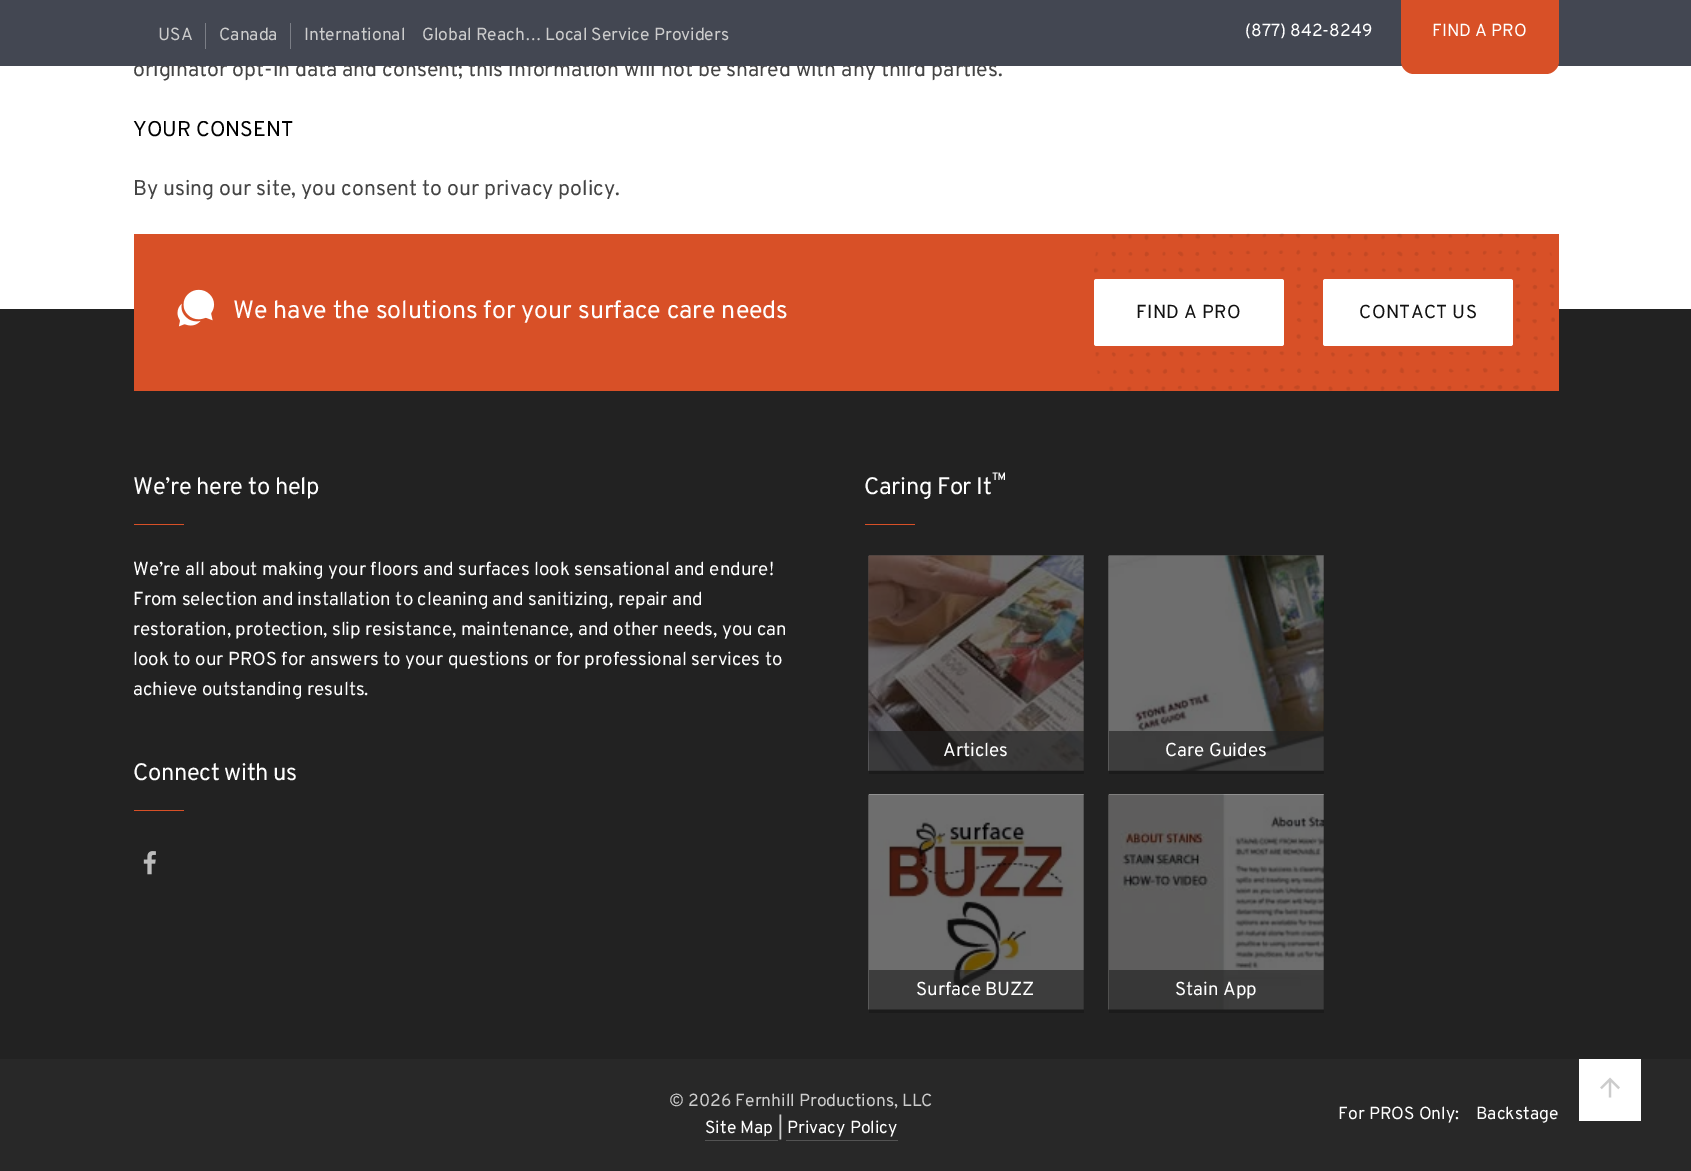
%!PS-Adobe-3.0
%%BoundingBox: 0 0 1691 1171
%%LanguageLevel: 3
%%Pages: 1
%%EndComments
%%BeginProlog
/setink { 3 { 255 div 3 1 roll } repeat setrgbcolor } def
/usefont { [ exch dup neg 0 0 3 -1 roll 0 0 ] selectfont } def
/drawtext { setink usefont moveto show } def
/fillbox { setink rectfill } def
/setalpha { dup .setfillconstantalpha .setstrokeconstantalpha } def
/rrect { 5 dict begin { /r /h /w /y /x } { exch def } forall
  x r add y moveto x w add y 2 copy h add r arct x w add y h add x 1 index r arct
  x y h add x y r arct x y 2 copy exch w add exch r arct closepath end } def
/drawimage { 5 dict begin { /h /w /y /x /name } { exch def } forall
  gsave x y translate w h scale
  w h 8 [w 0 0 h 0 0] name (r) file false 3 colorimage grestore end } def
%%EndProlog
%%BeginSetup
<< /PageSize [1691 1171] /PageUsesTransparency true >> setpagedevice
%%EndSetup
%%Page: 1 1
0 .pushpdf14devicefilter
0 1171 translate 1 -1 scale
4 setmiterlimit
0 0 1691 1171 255 255 255 fillbox
(originator opt-in data and consent; this information will not be shared with any third parties.) 133 76 /Overpass-Regular 21.25 68 68 68 drawtext
0 0 1691 66 67 71 82 fillbox
(USA) 158 40 /Overpass-Regular 17.5 204 204 204 drawtext
(Canada) 219 40 /Overpass-Regular 17.5 204 204 204 drawtext
205 23 1 26 123 126 134 fillbox
(International    Global Reach… Local Service Providers) 304 40 /Overpass-Regular 17.5 204 204 204 drawtext
290 23 1 26 123 126 134 fillbox
(\(877\) 842-8249) 1245 36 /Overpass-Regular 17.5 255 255 255 drawtext
216 80 39 setink
1401 -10 moveto 1559 -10 lineto 1559 61 lineto 1559 68 1553 74 1546 74 curveto 1414 74 lineto 1407 74 1401 68 1401 61 curveto closepath fill
(FIND A PRO) 1432 36 /Overpass-Regular 17.5 255 255 255 drawtext
(YOUR CONSENT) 133 136 /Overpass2-Regular 21.25 0 0 0 drawtext
(By using our site, you consent to our privacy policy.) 133 195 /Overpass-Regular 21.25 68 68 68 drawtext
0 309 1691 750 34 34 34 fillbox
134 234 1425 157 216 80 39 fillbox
(assets/img1.rgb) 1094 233 461 158 drawimage
(assets/img2.rgb) 177 289 38 38 drawimage
(We have the solutions for your surface care needs) 233 318 /Overpass-Regular 25 255 255 255 drawtext
1094 279 190 67 2.5 rrect fill
/Overpass-Regular 18.75 usefont
17 17 17 setink
1136 318 moveto 0.4 0 (FIND A PRO) ashow
255 255 255 setink
1323 279 190 67 2.5 rrect fill
17 17 17 setink
1359 318 moveto 0.4 0 (CONTACT US) ashow
1109 795 215 218 15 15 15 fillbox
869 795 215 218 15 15 15 fillbox
1109 556 215 218 15 15 15 fillbox
869 556 215 218 15 15 15 fillbox
/Overpass-Regular 23.75 usefont
255 255 255 setink
133 494 moveto -0.4 0 (We’re here to help) ashow
134 524 50 1 216 80 39 fillbox
(We’re all about making your floors and surfaces look sensational and endure!) 133 575 /Overpass-Regular 18.75 255 255 255 drawtext
(From selection and installation to cleaning and sanitizing, repair and) 133 605 /Overpass-Regular 18.75 255 255 255 drawtext
(restoration, protection, slip resistance, maintenance, and other needs, you can) 133 635 /Overpass-Regular 18.75 255 255 255 drawtext
(look to our PROS for answers to your questions or for professional services to) 133 665 /Overpass-Regular 18.75 255 255 255 drawtext
(achieve outstanding results.) 133 695 /Overpass-Regular 18.75 255 255 255 drawtext
/Overpass-Regular 23.75 usefont
133 780 moveto -0.4 0 (Connect with us) ashow
134 810 50 1 216 80 39 fillbox
(assets/img3.rgb) 143 851 13 24 drawimage
255 255 255 setink
864 494 moveto -0.4 0 (Caring For It) ashow
/Overpass-Regular 18 usefont
992 485 moveto -0.4 0 (™) ashow
865 524 50 1 216 80 39 fillbox
(assets/img4.rgb) 868 555 216 216 drawimage
0.65 setalpha
869 731 215 43 34 34 34 fillbox
1 setalpha
(Articles) 943 756 /Overpass-Regular 18.75 255 255 255 drawtext
(assets/img5.rgb) 1108 555 216 216 drawimage
0.65 setalpha
1109 731 215 43 34 34 34 fillbox
1 setalpha
(Care Guides) 1165 756 /Overpass-Regular 18.75 255 255 255 drawtext
(assets/img6.rgb) 868 794 216 216 drawimage
0.65 setalpha
869 970 215 43 34 34 34 fillbox
1 setalpha
(Surface BUZZ) 916 995 /Overpass-Regular 18.75 255 255 255 drawtext
(assets/img7.rgb) 1108 794 216 216 drawimage
0.65 setalpha
1109 970 215 43 34 34 34 fillbox
1 setalpha
(Stain App) 1175 995 /Overpass-Regular 18.75 255 255 255 drawtext
0 1059 1691 112 40 40 40 fillbox
(© 2026 Fernhill Productions, LLC) 669 1106 /Overpass-Regular 17.5 204 204 204 drawtext
(Site Map) 705 1133 /Overpass-Regular 17.5 255 255 255 drawtext
705 1140 73 1 83 83 83 fillbox
(|) 778 1133 /Overpass-Regular 17.5 204 204 204 drawtext
(Privacy Policy) 787 1133 /Overpass-Regular 17.5 255 255 255 drawtext
786 1140 112 1 83 83 83 fillbox
1579 1059 62 62 255 255 255 fillbox
(assets/img8.rgb) 1600 1077 20 21 drawimage
(For PROS Only:) 1338 1119 /Overpass-Regular 17.5 255 255 255 drawtext
(Backstage) 1476 1119 /Overpass-Regular 17.5 255 255 255 drawtext
.poppdf14devicefilter showpage
%%EOF
